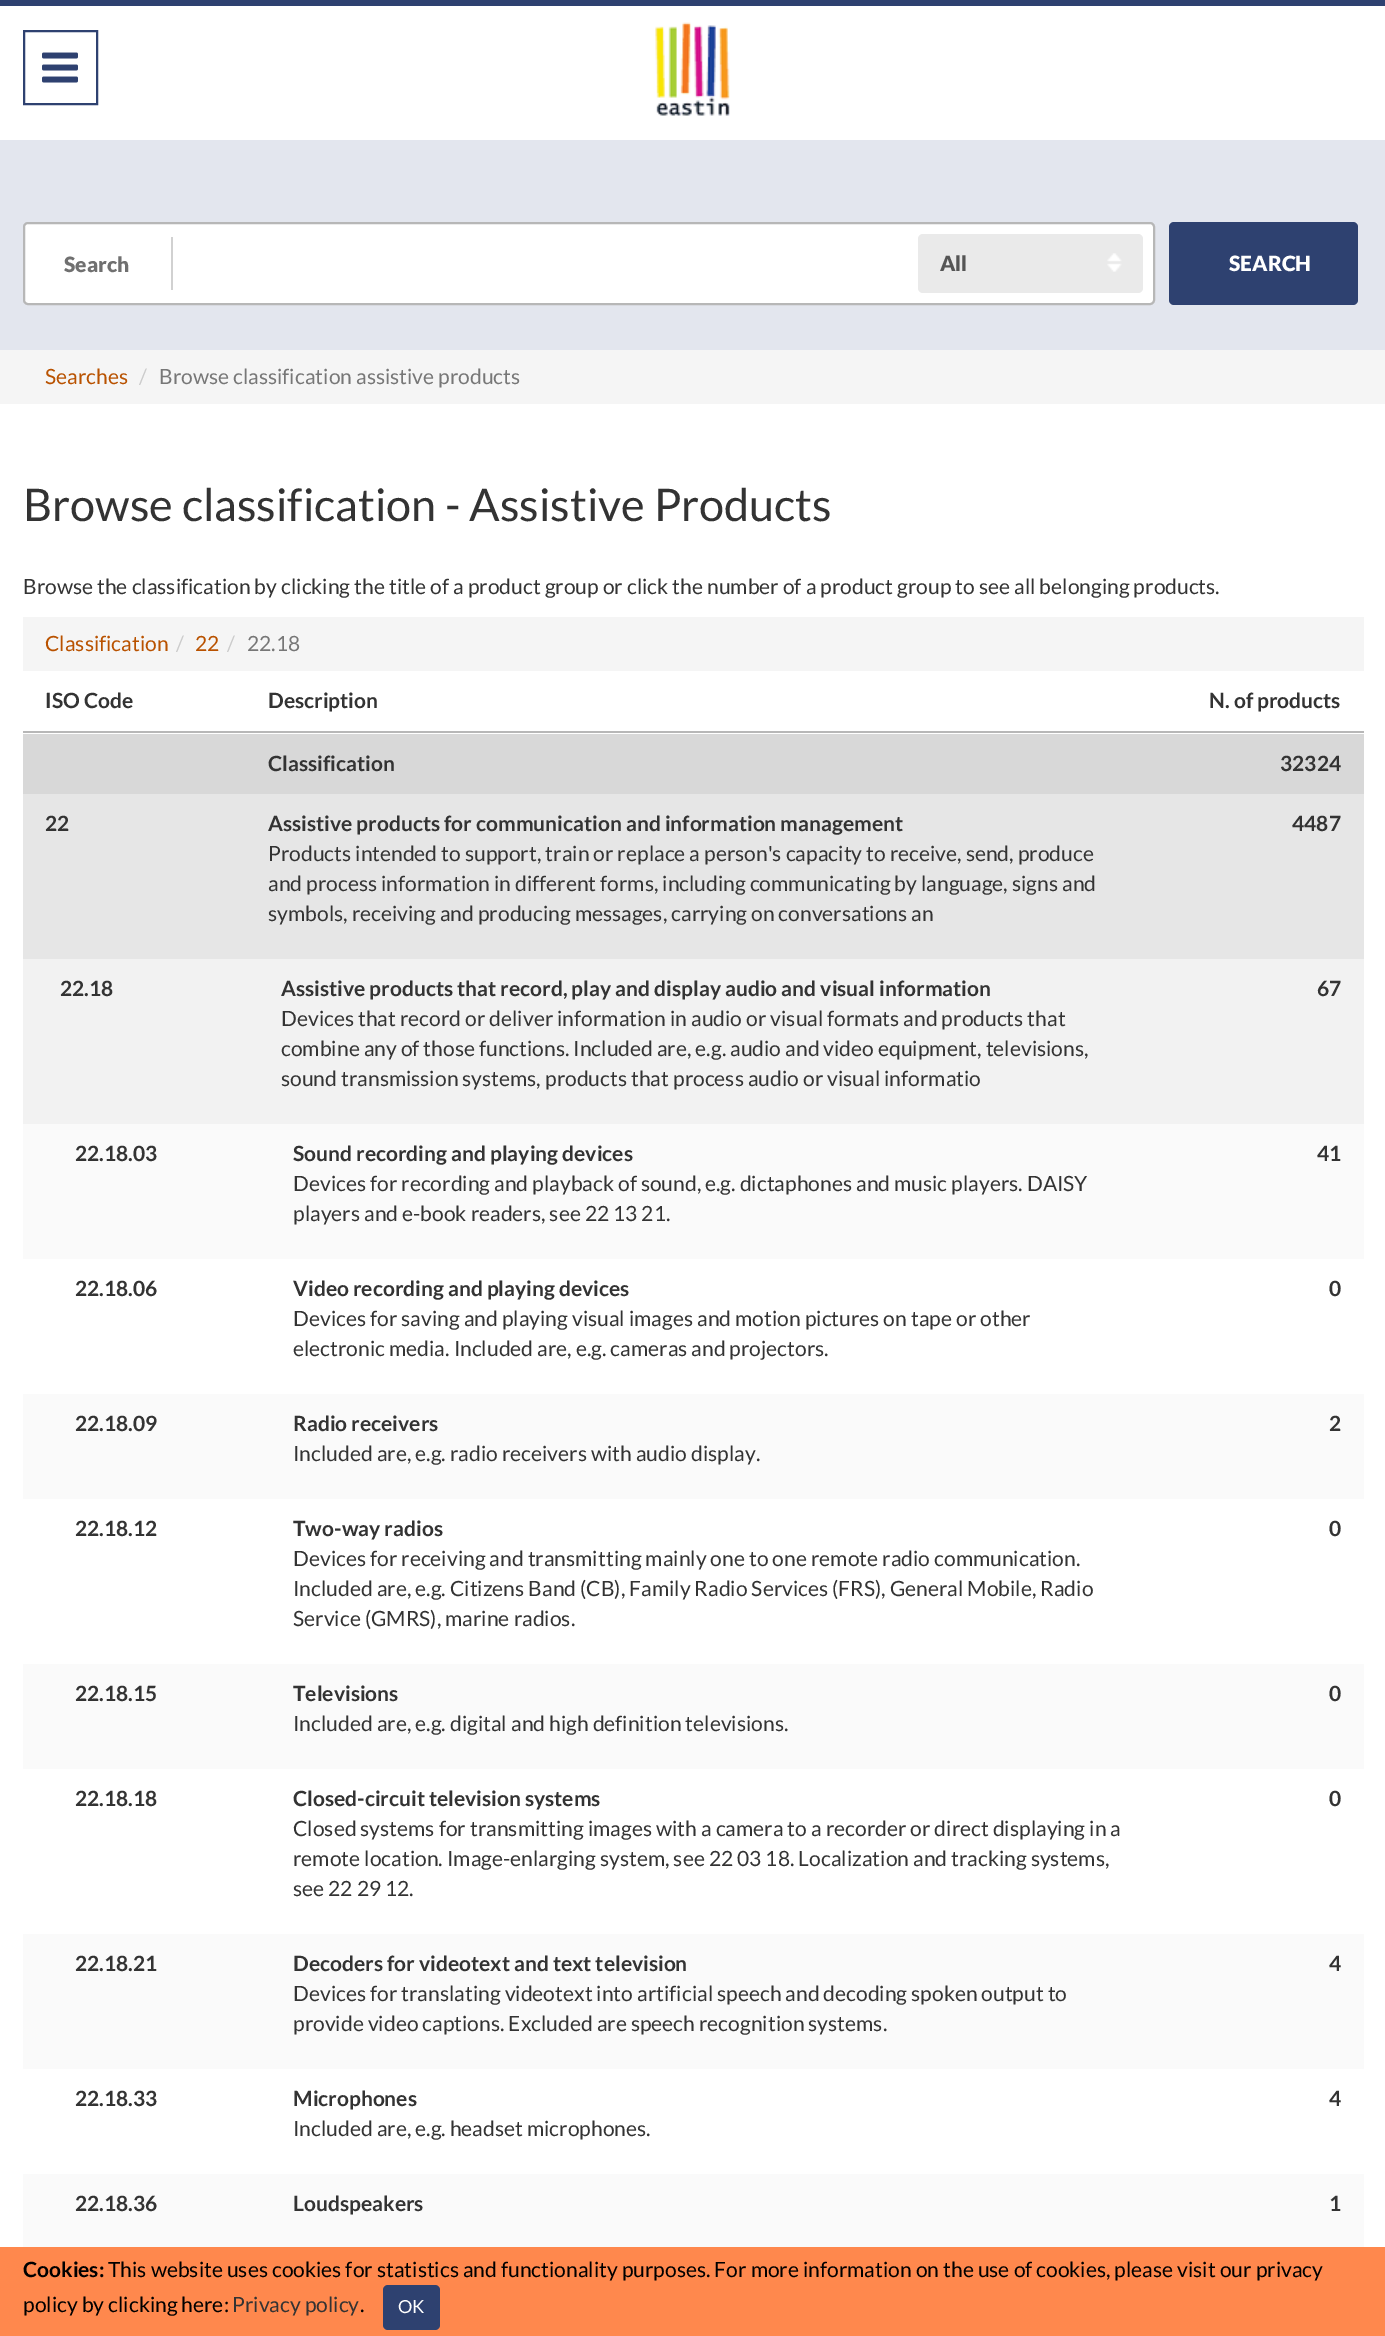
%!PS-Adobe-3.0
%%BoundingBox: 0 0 1385 2336
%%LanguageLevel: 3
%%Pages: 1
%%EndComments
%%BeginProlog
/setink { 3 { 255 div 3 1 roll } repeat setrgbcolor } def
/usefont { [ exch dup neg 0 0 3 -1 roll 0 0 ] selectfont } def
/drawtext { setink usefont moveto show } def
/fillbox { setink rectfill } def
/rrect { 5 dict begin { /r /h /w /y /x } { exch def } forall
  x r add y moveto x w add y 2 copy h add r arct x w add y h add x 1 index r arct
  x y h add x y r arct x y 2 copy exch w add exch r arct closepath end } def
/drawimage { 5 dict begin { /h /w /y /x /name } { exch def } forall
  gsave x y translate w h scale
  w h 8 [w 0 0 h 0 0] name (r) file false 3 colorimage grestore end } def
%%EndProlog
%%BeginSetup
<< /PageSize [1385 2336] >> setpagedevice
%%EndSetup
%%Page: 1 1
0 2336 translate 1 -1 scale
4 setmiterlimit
0 0 1385 2336 227 230 238 fillbox
0 6 1385 134 255 255 255 fillbox
0 0 1385 6 46 65 112 fillbox
2 setlinewidth
24 31 73 73 rectstroke
(assets/img1.rgb) 42 52 36 31 drawimage
(assets/img2.rgb) 655 22 75 94 drawimage
255 255 255 setink
24 223 1130 81 4 rrect gsave fill grestore
183 183 183 setink
stroke
171 237 2 53 209 209 209 fillbox
(Search) 64 272 /Lato-Black 21 112 112 112 drawtext
234 234 234 setink
918 234 225 59 5 rrect fill
(assets/img3.rgb) 1107 253 15 19 drawimage
(All) 940 271 /Lato-Black 21 85 85 85 drawtext
46 65 112 setink
1169 222 189 83 5 rrect fill
(SEARCH) 1229 271 /Lato-Black 21 255 255 255 drawtext
0 350 1385 54 245 245 245 fillbox
(Searches) 45 384 /Lato-Regular 21 185 82 0 drawtext
(/) 139 384 /Lato-Regular 21 204 204 204 drawtext
(Browse classification assistive products) 159 384 /Lato-Regular 21 119 119 119 drawtext
0 404 1385 1843 255 255 255 fillbox
(Browse classification - Assistive Products) 23 521 /Lato-Regular 45 51 51 51 drawtext
(Browse the classification by clicking the title of a product group or click the number of a product group to see all belonging products.) 23 594 /Lato-Regular 21 51 51 51 drawtext
23 617 1341 54 245 245 245 fillbox
(Classification) 45 651 /Lato-Regular 21 185 82 0 drawtext
(/) 176 651 /Lato-Regular 21 204 204 204 drawtext
(22) 195 651 /Lato-Regular 21 185 82 0 drawtext
(/) 227 651 /Lato-Regular 21 204 204 204 drawtext
(22.18) 247 651 /Lato-Regular 21 119 119 119 drawtext
23 731 1341 2 183 183 183 fillbox
(ISO Code) 45 708 /Lato-Bold 21 51 51 51 drawtext
(Description) 268 708 /Lato-Bold 21 51 51 51 drawtext
(N. of products) 1209 708 /Lato-Bold 21 51 51 51 drawtext
23 734 1341 60 216 216 216 fillbox
(Classification) 268 771 /Lato-Bold 21 51 51 51 drawtext
(32324) 1280 771 /Lato-Bold 21 51 51 51 drawtext
23 794 1341 165 230 230 230 fillbox
(22) 45 831 /Lato-Bold 21 51 51 51 drawtext
(Assistive products for communication and information management) 268 831 /Lato-Bold 21 51 51 51 drawtext
(Products intended to support, train or replace a person's capacity to receive, send, produce) 268 861 /Lato-Regular 21 51 51 51 drawtext
(and process information in different forms, including communicating by language, signs and) 268 891 /Lato-Regular 21 51 51 51 drawtext
(symbols, receiving and producing messages, carrying on conversations an) 268 921 /Lato-Regular 21 51 51 51 drawtext
(4487) 1292 831 /Lato-Bold 21 51 51 51 drawtext
23 959 1341 165 242 242 242 fillbox
(22.18) 60 996 /Lato-Bold 21 51 51 51 drawtext
(Assistive products that record, play and display audio and visual information) 281 996 /Lato-Bold 21 51 51 51 drawtext
(Devices that record or deliver information in audio or visual formats and products that) 281 1026 /Lato-Regular 21 51 51 51 drawtext
(combine any of those functions. Included are, e.g. audio and video equipment, televisions,) 281 1056 /Lato-Regular 21 51 51 51 drawtext
(sound transmission systems, products that process audio or visual informatio) 281 1086 /Lato-Regular 21 51 51 51 drawtext
(67) 1317 996 /Lato-Bold 21 51 51 51 drawtext
23 1124 1341 135 250 250 250 fillbox
(22.18.03) 75 1161 /Lato-Bold 21 51 51 51 drawtext
(Sound recording and playing devices) 293 1161 /Lato-Bold 21 51 51 51 drawtext
(Devices for recording and playback of sound, e.g. dictaphones and music players. DAISY) 293 1191 /Lato-Regular 21 51 51 51 drawtext
(players and e-book readers, see 22 13 21.) 293 1221 /Lato-Regular 21 51 51 51 drawtext
(41) 1317 1161 /Lato-Bold 21 51 51 51 drawtext
(22.18.06) 75 1296 /Lato-Bold 21 51 51 51 drawtext
(Video recording and playing devices) 293 1296 /Lato-Bold 21 51 51 51 drawtext
(Devices for saving and playing visual images and motion pictures on tape or other) 293 1326 /Lato-Regular 21 51 51 51 drawtext
(electronic media. Included are, e.g. cameras and projectors.) 293 1356 /Lato-Regular 21 51 51 51 drawtext
(0) 1329 1296 /Lato-Bold 21 51 51 51 drawtext
23 1394 1341 105 250 250 250 fillbox
(22.18.09) 75 1431 /Lato-Bold 21 51 51 51 drawtext
(Radio receivers) 293 1431 /Lato-Bold 21 51 51 51 drawtext
(Included are, e.g. radio receivers with audio display.) 293 1461 /Lato-Regular 21 51 51 51 drawtext
(2) 1329 1431 /Lato-Bold 21 51 51 51 drawtext
(22.18.12) 75 1536 /Lato-Bold 21 51 51 51 drawtext
(Two-way radios) 293 1536 /Lato-Bold 21 51 51 51 drawtext
(Devices for receiving and transmitting mainly one to one remote radio communication.) 293 1566 /Lato-Regular 21 51 51 51 drawtext
(Included are, e.g. Citizens Band \(CB\), Family Radio Services \(FRS\), General Mobile, Radio) 293 1596 /Lato-Regular 21 51 51 51 drawtext
(Service \(GMRS\), marine radios.) 293 1626 /Lato-Regular 21 51 51 51 drawtext
(0) 1329 1536 /Lato-Bold 21 51 51 51 drawtext
23 1664 1341 105 250 250 250 fillbox
(22.18.15) 75 1701 /Lato-Bold 21 51 51 51 drawtext
(Televisions) 293 1701 /Lato-Bold 21 51 51 51 drawtext
(Included are, e.g. digital and high definition televisions.) 293 1731 /Lato-Regular 21 51 51 51 drawtext
(0) 1329 1701 /Lato-Bold 21 51 51 51 drawtext
(22.18.18) 75 1806 /Lato-Bold 21 51 51 51 drawtext
(Closed-circuit television systems) 293 1806 /Lato-Bold 21 51 51 51 drawtext
(Closed systems for transmitting images with a camera to a recorder or direct displaying in a) 293 1836 /Lato-Regular 21 51 51 51 drawtext
(remote location. Image-enlarging system, see 22 03 18. Localization and tracking systems,) 293 1866 /Lato-Regular 21 51 51 51 drawtext
(see 22 29 12.) 293 1896 /Lato-Regular 21 51 51 51 drawtext
(0) 1329 1806 /Lato-Bold 21 51 51 51 drawtext
23 1934 1341 135 250 250 250 fillbox
(22.18.21) 75 1971 /Lato-Bold 21 51 51 51 drawtext
(Decoders for videotext and text television) 293 1971 /Lato-Bold 21 51 51 51 drawtext
(Devices for translating videotext into artificial speech and decoding spoken output to) 293 2001 /Lato-Regular 21 51 51 51 drawtext
(provide video captions. Excluded are speech recognition systems.) 293 2031 /Lato-Regular 21 51 51 51 drawtext
(4) 1329 1971 /Lato-Bold 21 51 51 51 drawtext
(22.18.33) 75 2106 /Lato-Bold 21 51 51 51 drawtext
(Microphones) 293 2106 /Lato-Bold 21 51 51 51 drawtext
(Included are, e.g. headset microphones.) 293 2136 /Lato-Regular 21 51 51 51 drawtext
(4) 1329 2106 /Lato-Bold 21 51 51 51 drawtext
23 2174 1341 73 250 250 250 fillbox
(22.18.36) 75 2211 /Lato-Bold 21 51 51 51 drawtext
(Loudspeakers) 293 2211 /Lato-Bold 21 51 51 51 drawtext
(1) 1329 2211 /Lato-Bold 21 51 51 51 drawtext
0 2247 1385 89 255 136 77 fillbox
(Cookies:) 23 2277 /Lato-Bold 21 0 0 0 drawtext
(This website uses cookies for statistics and functionality purposes. For more information on the use of cookies, please visit our privacy) 108 2277 /Lato-Regular 21 0 0 0 drawtext
(policy by clicking here:) 23 2312 /Lato-Regular 21 0 0 0 drawtext
(Privacy policy) 232 2312 /Lato-Regular 21 51 51 51 drawtext
(.) 360 2312 /Lato-Regular 21 0 0 0 drawtext
46 65 112 setink
383 2285 57 45 5 rrect fill
(OK) 398 2313 /Lato-Regular 18 255 255 255 drawtext
showpage
%%EOF
